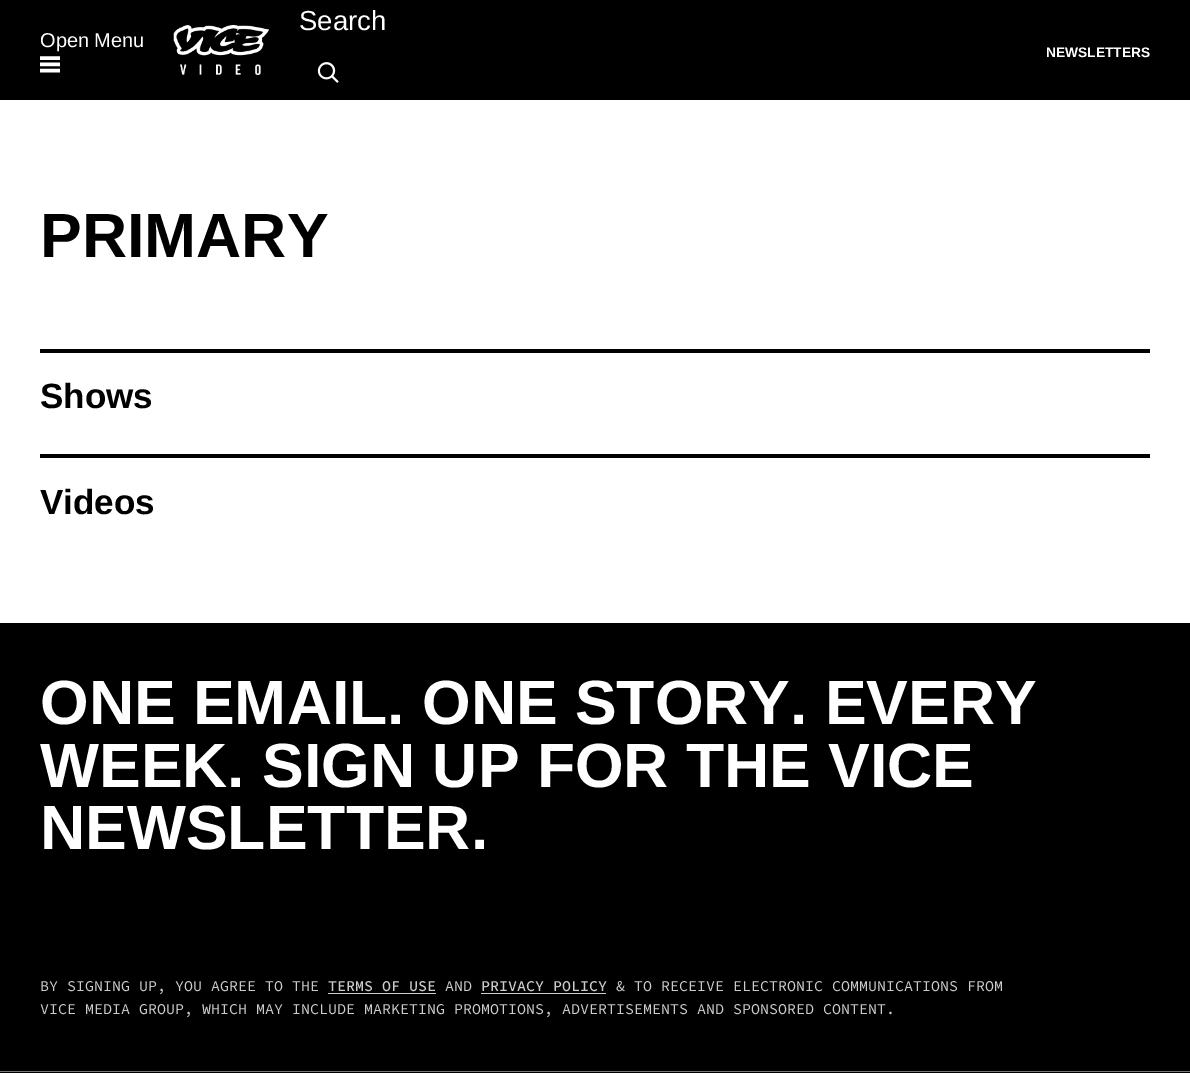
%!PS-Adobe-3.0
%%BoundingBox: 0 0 1190 1073
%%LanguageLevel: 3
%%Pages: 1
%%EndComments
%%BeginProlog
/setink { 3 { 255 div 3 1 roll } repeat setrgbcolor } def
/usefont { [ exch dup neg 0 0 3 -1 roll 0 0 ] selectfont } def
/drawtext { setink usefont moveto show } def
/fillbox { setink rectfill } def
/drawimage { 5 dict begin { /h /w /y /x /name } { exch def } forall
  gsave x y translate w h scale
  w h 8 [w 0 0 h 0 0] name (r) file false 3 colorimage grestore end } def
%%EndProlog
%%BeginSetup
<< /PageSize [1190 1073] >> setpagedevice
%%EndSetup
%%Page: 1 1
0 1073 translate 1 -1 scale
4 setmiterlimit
0 0 1190 1073 255 255 255 fillbox
0 0 1190 100 0 0 0 fillbox
(Search) 299 30 /LiberationSans-Regular 27.5 255 255 255 drawtext
(assets/img1.rgb) 317 62 22 21 drawimage
(Open Menu) 40 47 /LiberationSans-Regular 20 255 255 255 drawtext
(assets/img2.rgb) 40 56 20 17 drawimage
(assets/img3.rgb) 173 25 96 50 drawimage
(NEWSLETTERS) 1046 57 /LiberationSans-Bold 13.75 255 255 255 drawtext
(PRIMARY) 40 257 /LiberationSans-Bold 62.5 0 0 0 drawtext
40 349 1110 4 0 0 0 fillbox
(Shows) 40 408 /LiberationSans-Bold 35 0 0 0 drawtext
40 454 1110 4 0 0 0 fillbox
(Videos) 40 514 /LiberationSans-Bold 35 0 0 0 drawtext
0 623 1190 450 0 0 0 fillbox
(ONE EMAIL. ONE STORY. EVERY) 40 724 /LiberationSans-Bold 62.5 255 255 255 drawtext
(WEEK. SIGN UP FOR THE VICE) 40 787 /LiberationSans-Bold 62.5 255 255 255 drawtext
(NEWSLETTER.) 40 849 /LiberationSans-Bold 62.5 255 255 255 drawtext
(BY SIGNING UP, YOU AGREE TO THE) 40 991 /SourceCodePro-Regular 15 204 204 204 drawtext
(TERMS OF USE) 328 991 /SourceCodePro-Medium 15 204 204 204 drawtext
328 993 108 1 204 204 204 fillbox
(AND) 445 991 /SourceCodePro-Regular 15 204 204 204 drawtext
(PRIVACY POLICY) 481 991 /SourceCodePro-Medium 15 204 204 204 drawtext
481 993 125 1 204 204 204 fillbox
(& TO RECEIVE ELECTRONIC COMMUNICATIONS FROM) 616 991 /SourceCodePro-Regular 15 204 204 204 drawtext
(VICE MEDIA GROUP, WHICH MAY INCLUDE MARKETING PROMOTIONS, ADVERTISEMENTS AND SPONSORED CONTENT.) 40 1014 /SourceCodePro-Regular 15 204 204 204 drawtext
0 1071 1190 1 117 117 117 fillbox
showpage
%%EOF
